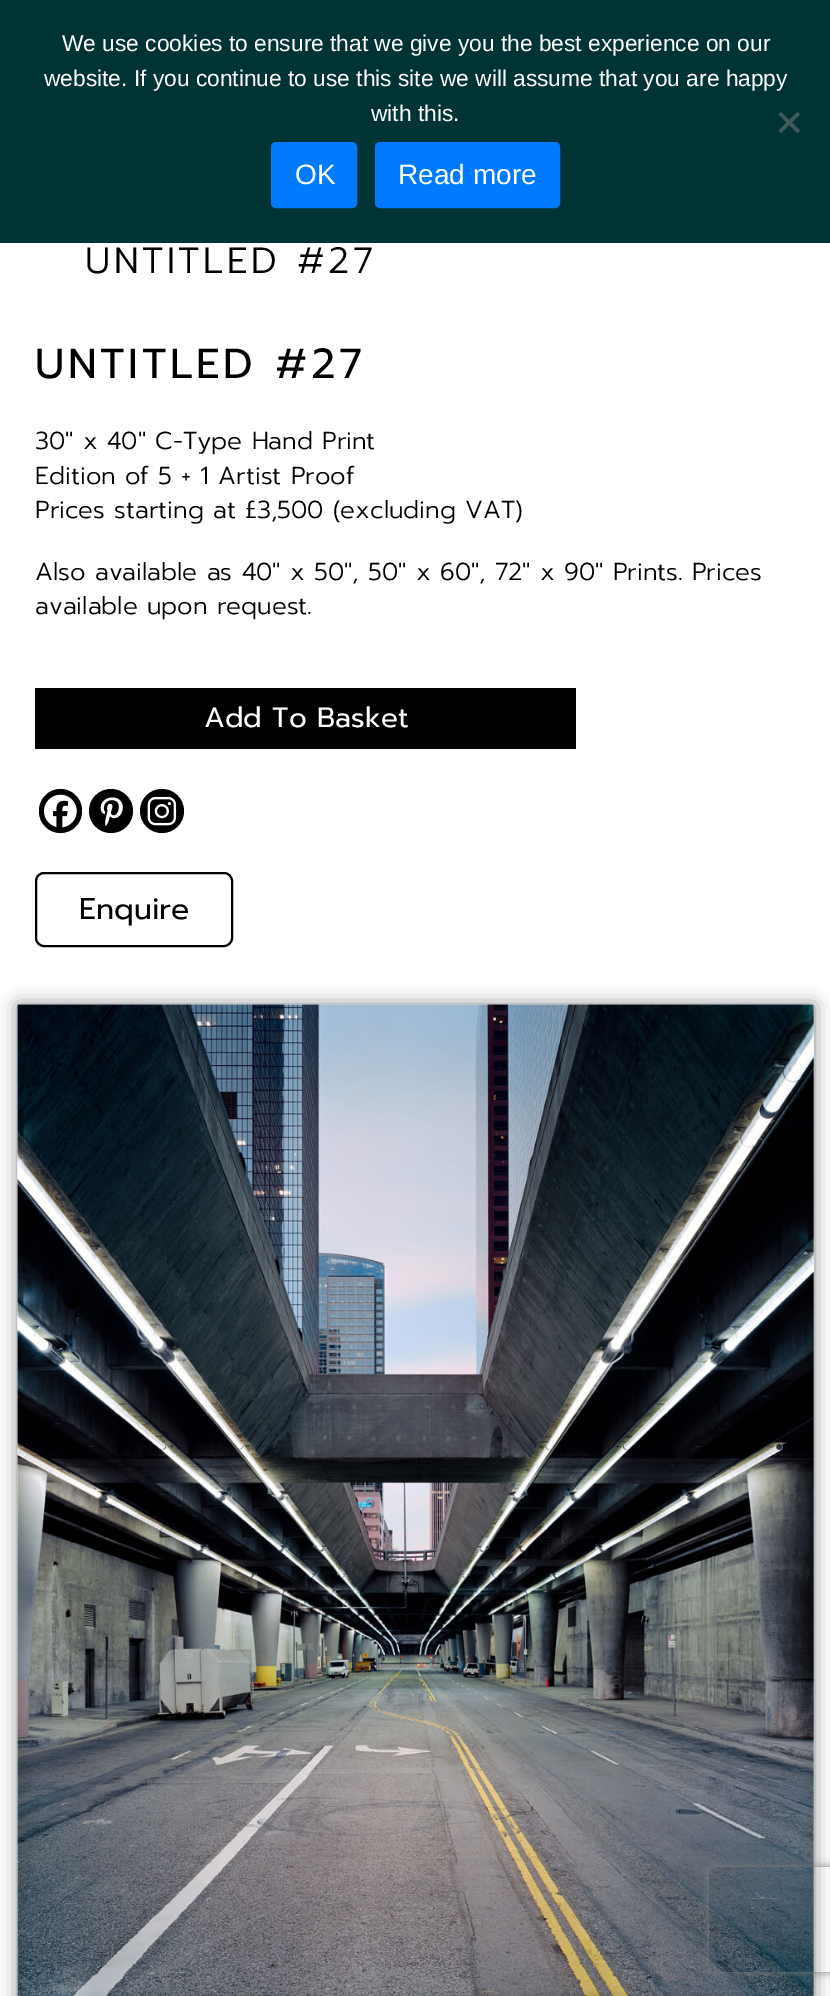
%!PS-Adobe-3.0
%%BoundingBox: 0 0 830 1996
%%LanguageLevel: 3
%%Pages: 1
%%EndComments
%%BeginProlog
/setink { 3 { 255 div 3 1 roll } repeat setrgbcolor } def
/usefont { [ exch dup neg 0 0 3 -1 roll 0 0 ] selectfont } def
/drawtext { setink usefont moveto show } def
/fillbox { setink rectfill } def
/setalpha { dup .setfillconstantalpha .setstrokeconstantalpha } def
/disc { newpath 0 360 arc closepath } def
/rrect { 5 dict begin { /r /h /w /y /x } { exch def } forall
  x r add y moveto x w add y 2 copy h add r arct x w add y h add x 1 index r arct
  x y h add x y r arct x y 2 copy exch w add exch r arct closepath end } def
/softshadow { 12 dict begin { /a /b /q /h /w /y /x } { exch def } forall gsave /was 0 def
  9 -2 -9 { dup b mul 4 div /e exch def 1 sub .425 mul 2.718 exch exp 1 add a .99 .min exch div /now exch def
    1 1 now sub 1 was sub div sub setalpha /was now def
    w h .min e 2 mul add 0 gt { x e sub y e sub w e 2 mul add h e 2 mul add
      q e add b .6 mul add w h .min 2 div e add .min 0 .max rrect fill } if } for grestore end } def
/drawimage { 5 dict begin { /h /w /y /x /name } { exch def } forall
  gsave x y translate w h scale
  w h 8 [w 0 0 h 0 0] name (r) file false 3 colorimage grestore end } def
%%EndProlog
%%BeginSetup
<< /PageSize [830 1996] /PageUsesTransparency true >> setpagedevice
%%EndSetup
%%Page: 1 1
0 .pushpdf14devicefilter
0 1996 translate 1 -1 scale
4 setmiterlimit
0 0 830 1996 255 255 255 fillbox
0 0 830 243 0 51 51 fillbox
(We use cookies to ensure that we give you the best experience on our) 62 51 /LiberationSans-Regular 22.75 255 255 255 drawtext
(website. If you continue to use this site we will assume that you are happy) 44 86 /LiberationSans-Regular 22.75 255 255 255 drawtext
(with this.) 371 121 /LiberationSans-Regular 22.75 255 255 255 drawtext
64 90 90 setink
797.5 112 moveto 800 114.5 lineto 781 133 lineto 778.5 130.5 lineto closepath fill
778.5 114.5 moveto 781 112 lineto 800 130.5 lineto 797.5 133 lineto closepath fill
0 123 255 setink
272 143 84 64 4 rrect gsave fill grestore
2 setlinewidth
stroke
(OK) 295 184 /LiberationSans-Regular 28 255 255 255 drawtext
0 123 255 setink
376 143 183 64 4 rrect gsave fill grestore
stroke
(Read more) 398 184 /LiberationSans-Regular 28 255 255 255 drawtext
/Prompt-Light 36.5 usefont
0 0 0 setink
85 273 moveto 3.5 0 (UNTITLED #27) ashow
/Prompt-Regular 42 usefont
35 378 moveto 3.5 0 (UNTITLED #27) ashow
(30″ x 40″ C-Type Hand Print) 35 449 /Prompt-Light 24.5 0 0 0 drawtext
(Edition of 5 + 1 Artist Proof) 35 484 /Prompt-Light 24.5 0 0 0 drawtext
(Prices starting at £3,500 \(excluding VAT\)) 35 518 /Prompt-Light 24.5 0 0 0 drawtext
(Also available as 40″ x 50″, 50″ x 60″, 72″ x 90″ Prints. Prices) 35 580 /Prompt-Light 24.5 0 0 0 drawtext
(available upon request.) 35 614 /Prompt-Light 24.5 0 0 0 drawtext
35 688 541 61 0 0 0 fillbox
(Add To Basket) 204 727 /Prompt-Regular 28 255 255 255 drawtext
0 0 0 setink
39 789 43 44 21.5 rrect fill
(assets/img1.rgb) 44 794 33 34 drawimage
111 811 22 disc fill
(assets/img2.rgb) 100 797 23 30 drawimage
162 811 22 disc fill
(assets/img3.rgb) 147 796 30 30 drawimage
36 873 196 73 8 rrect stroke
(Enquire) 79 919 /Prompt-Regular 30 0 0 0 drawtext
18 1005 796 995 0 9 0.5 softshadow
(assets/img4.rgb) 17 1004 797 992 drawimage
gsave
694 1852 moveto 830 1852 lineto 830 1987 lineto 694 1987 lineto closepath 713 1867 moveto 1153 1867 lineto 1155 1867 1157 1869 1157 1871 curveto 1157 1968 lineto 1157 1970 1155 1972 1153 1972 curveto 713 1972 lineto 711 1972 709 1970 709 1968 curveto 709 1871 lineto 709 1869 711 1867 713 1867 curveto closepath eoclip newpath
128 128 128 setink
709 1867 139 105 4 4.5 1 softshadow
grestore
.poppdf14devicefilter showpage
%%EOF
